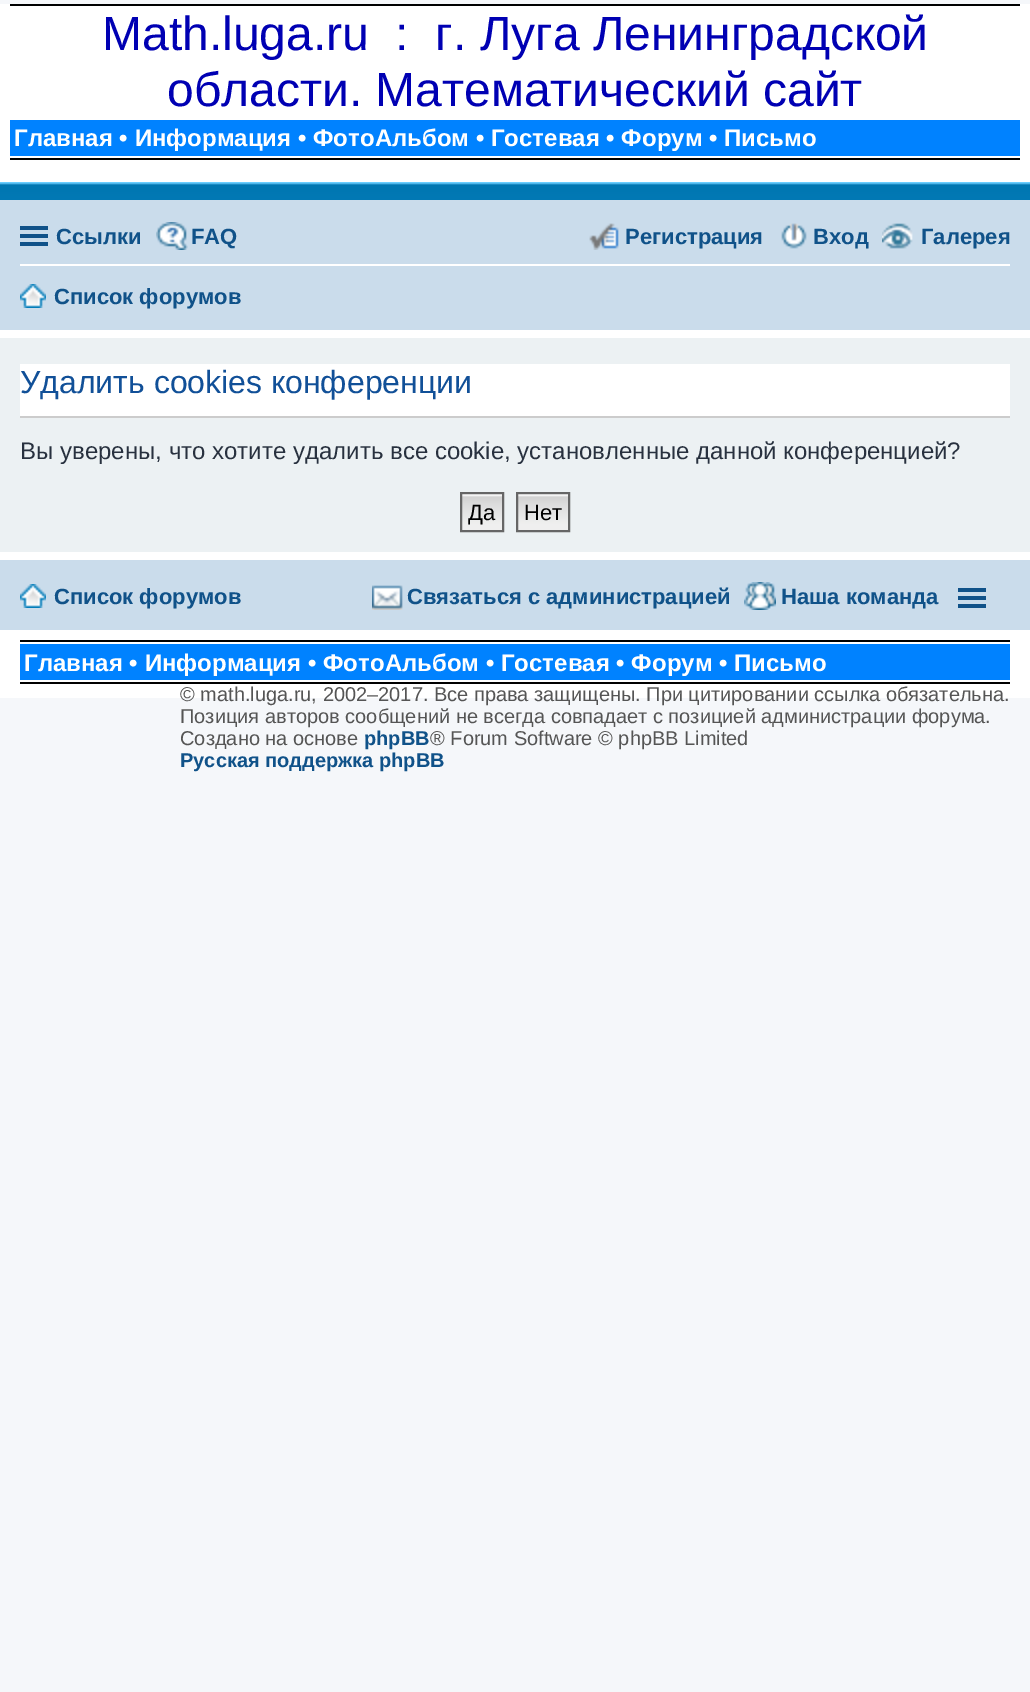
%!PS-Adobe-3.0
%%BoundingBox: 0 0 1030 1692
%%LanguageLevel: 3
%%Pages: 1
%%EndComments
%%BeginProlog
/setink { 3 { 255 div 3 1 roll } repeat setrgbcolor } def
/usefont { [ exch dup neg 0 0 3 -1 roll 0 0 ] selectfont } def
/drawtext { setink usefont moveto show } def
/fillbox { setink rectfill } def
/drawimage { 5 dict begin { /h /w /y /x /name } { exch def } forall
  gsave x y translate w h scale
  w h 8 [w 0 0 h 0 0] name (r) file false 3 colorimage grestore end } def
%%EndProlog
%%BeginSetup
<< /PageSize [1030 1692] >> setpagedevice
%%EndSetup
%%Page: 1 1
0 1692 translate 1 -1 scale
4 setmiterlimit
0 0 1030 1692 245 247 250 fillbox
0 4 1030 694 255 255 255 fillbox
10 4 1010 2 0 0 0 fillbox
10 158 1010 2 0 0 0 fillbox
(Math.luga.ru  :  г. Луга Ленинградской) 102 50 /LiberationSans-Regular 48 0 0 179 drawtext
(области. Математический сайт) 167 106 /LiberationSans-Regular 48 0 0 179 drawtext
10 120 1010 36 0 130 255 fillbox
(Главная • Информация • ФотоАльбом • Гостевая • Форум • Письмо) 14 146 /LiberationSans-Bold 24 255 255 255 drawtext
(assets/img1.rgb) 0 182 1030 18 drawimage
0 200 1030 130 202 220 235 fillbox
20 226 28 4 16 82 137 fillbox
20 234 28 4 16 82 137 fillbox
20 242 28 4 16 82 137 fillbox
(Ссылки) 56 244 /LiberationSans-Bold 22 16 82 137 drawtext
(assets/img2.rgb) 156 222 32 28 drawimage
(FAQ) 191 244 /LiberationSans-Bold 22 16 82 137 drawtext
(assets/img3.rgb) 589 223 30 27 drawimage
(Регистрация) 625 244 /LiberationSans-Bold 22 16 82 137 drawtext
(assets/img4.rgb) 781 223 26 26 drawimage
(Вход) 813 244 /LiberationSans-Bold 22 16 82 137 drawtext
(assets/img5.rgb) 882 223 31 26 drawimage
(Галерея) 921 244 /LiberationSans-Bold 22 16 82 137 drawtext
20 264 990 2 255 255 255 fillbox
(assets/img6.rgb) 20 284 26 24 drawimage
(Список форумов) 54 304 /LiberationSans-Bold 22 16 82 137 drawtext
0 338 1030 214 236 241 243 fillbox
20 364 990 52 255 255 255 fillbox
20 416 990 2 204 204 204 fillbox
(Удалить cookies конференции) 20 393 /LiberationSans-Regular 32 17 80 152 drawtext
(Вы уверены, что хотите удалить все cookie, установленные данной конференцией?) 20 459 /LiberationSans-Regular 24 40 49 63 drawtext
(assets/img7.rgb) 462 494 40 36 drawimage
102 102 102 setink
2 setlinewidth
461 493 42 38 rectstroke
(Да) 468 520 /LiberationSans-Regular 22 0 0 0 drawtext
(assets/img8.rgb) 518 494 50 36 drawimage
102 102 102 setink
517 493 52 38 rectstroke
(Нет) 524 520 /LiberationSans-Regular 22 0 0 0 drawtext
0 560 1030 70 202 220 235 fillbox
(assets/img6.rgb) 20 584 26 24 drawimage
(Список форумов) 54 604 /LiberationSans-Bold 22 16 82 137 drawtext
(assets/img9.rgb) 372 585 31 25 drawimage
(Связаться с администрацией) 407 604 /LiberationSans-Bold 22 16 82 137 drawtext
(assets/img10.rgb) 744 582 32 28 drawimage
(Наша команда) 781 604 /LiberationSans-Bold 22 16 82 137 drawtext
958 588 28 4 16 82 137 fillbox
958 596 28 4 16 82 137 fillbox
958 604 28 4 16 82 137 fillbox
20 640 990 2 0 0 0 fillbox
20 682 990 2 0 0 0 fillbox
20 644 990 36 0 130 255 fillbox
(Главная • Информация • ФотоАльбом • Гостевая • Форум • Письмо) 24 671 /LiberationSans-Bold 24 255 255 255 drawtext
(© math.luga.ru, 2002–2017. Все права защищены. При цитировании ссылка обязательна.) 180 701 /LiberationSans-Regular 20 85 85 85 drawtext
(Позиция авторов сообщений не всегда совпадает с позицией администрации форума.) 180 723 /LiberationSans-Regular 20 85 85 85 drawtext
(Создано на основе) 180 745 /LiberationSans-Regular 20 85 85 85 drawtext
(phpBB) 364 745 /LiberationSans-Bold 20 16 82 137 drawtext
(® Forum Software © phpBB Limited) 430 745 /LiberationSans-Regular 20 85 85 85 drawtext
(Русская поддержка phpBB) 180 767 /LiberationSans-Bold 20 16 82 137 drawtext
showpage
%%EOF
